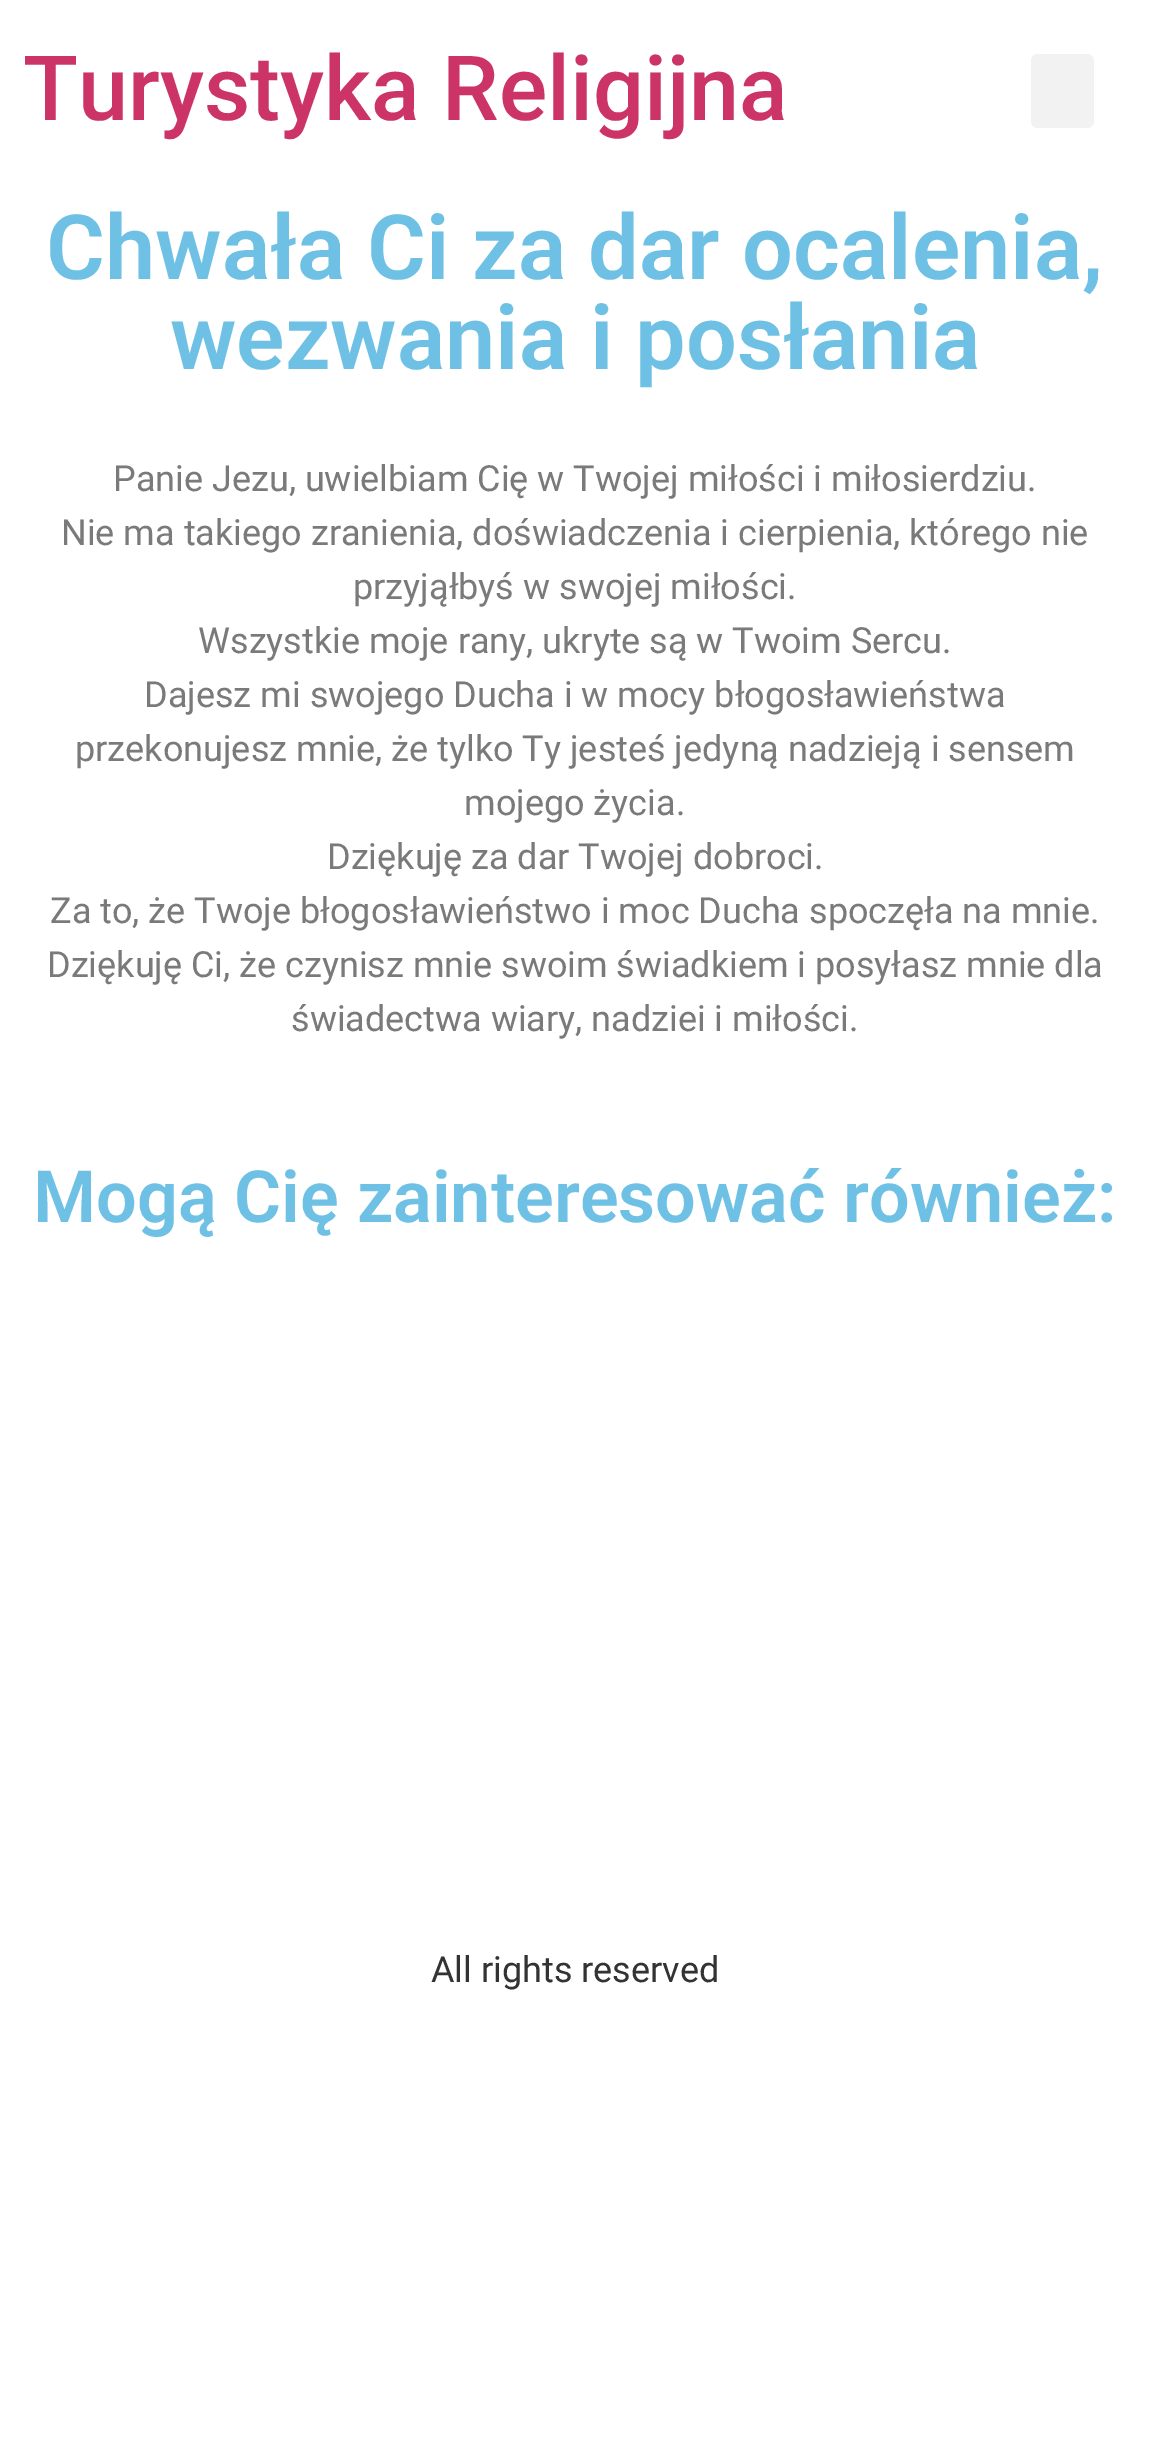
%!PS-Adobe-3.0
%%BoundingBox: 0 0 1149 2445
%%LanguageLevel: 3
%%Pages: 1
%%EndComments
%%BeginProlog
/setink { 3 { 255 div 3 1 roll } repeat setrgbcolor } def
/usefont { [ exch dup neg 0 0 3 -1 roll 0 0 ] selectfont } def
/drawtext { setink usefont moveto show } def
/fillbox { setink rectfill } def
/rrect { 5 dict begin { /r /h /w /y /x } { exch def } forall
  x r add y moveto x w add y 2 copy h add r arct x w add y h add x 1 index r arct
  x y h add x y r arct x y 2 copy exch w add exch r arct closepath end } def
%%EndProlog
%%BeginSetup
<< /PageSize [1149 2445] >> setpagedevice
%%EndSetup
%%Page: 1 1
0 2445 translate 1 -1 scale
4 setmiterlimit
0 0 1149 2445 255 255 255 fillbox
(Turystyka Religijna) 23 120 /Roboto-Medium 90 204 51 102 drawtext
242 242 242 setink
1031 54 63 74 7 rrect fill
(Chwała Ci za dar ocalenia,) 46 279 /Roboto-SemiBold 90 110 193 228 drawtext
(wezwania i posłania) 170 369 /Roboto-SemiBold 90 110 193 228 drawtext
(Panie Jezu, uwielbiam Cię w Twojej miłości i miłosierdziu.) 113 491 /Roboto-Regular 36 122 122 122 drawtext
(Nie ma takiego zranienia, doświadczenia i cierpienia, którego nie) 61 545 /Roboto-Regular 36 122 122 122 drawtext
(przyjąłbyś w swojej miłości.) 353 599 /Roboto-Regular 36 122 122 122 drawtext
(Wszystkie moje rany, ukryte są w Twoim Sercu.) 198 653 /Roboto-Regular 36 122 122 122 drawtext
(Dajesz mi swojego Ducha i w mocy błogosławieństwa) 144 707 /Roboto-Regular 36 122 122 122 drawtext
(przekonujesz mnie, że tylko Ty jesteś jedyną nadzieją i sensem) 75 761 /Roboto-Regular 36 122 122 122 drawtext
(mojego życia.) 464 815 /Roboto-Regular 36 122 122 122 drawtext
(Dziękuję za dar Twojej dobroci.) 327 869 /Roboto-Regular 36 122 122 122 drawtext
(Za to, że Twoje błogosławieństwo i moc Ducha spoczęła na mnie.) 50 923 /Roboto-Regular 36 122 122 122 drawtext
(Dziękuję Ci, że czynisz mnie swoim świadkiem i posyłasz mnie dla) 47 977 /Roboto-Regular 36 122 122 122 drawtext
(świadectwa wiary, nadziei i miłości.) 291 1031 /Roboto-Regular 36 122 122 122 drawtext
(Mogą Cię zainteresować również:) 33 1222 /Roboto-SemiBold 72 110 193 228 drawtext
(All rights reserved) 431 1982 /Roboto-Regular 36 51 51 51 drawtext
showpage
%%EOF
